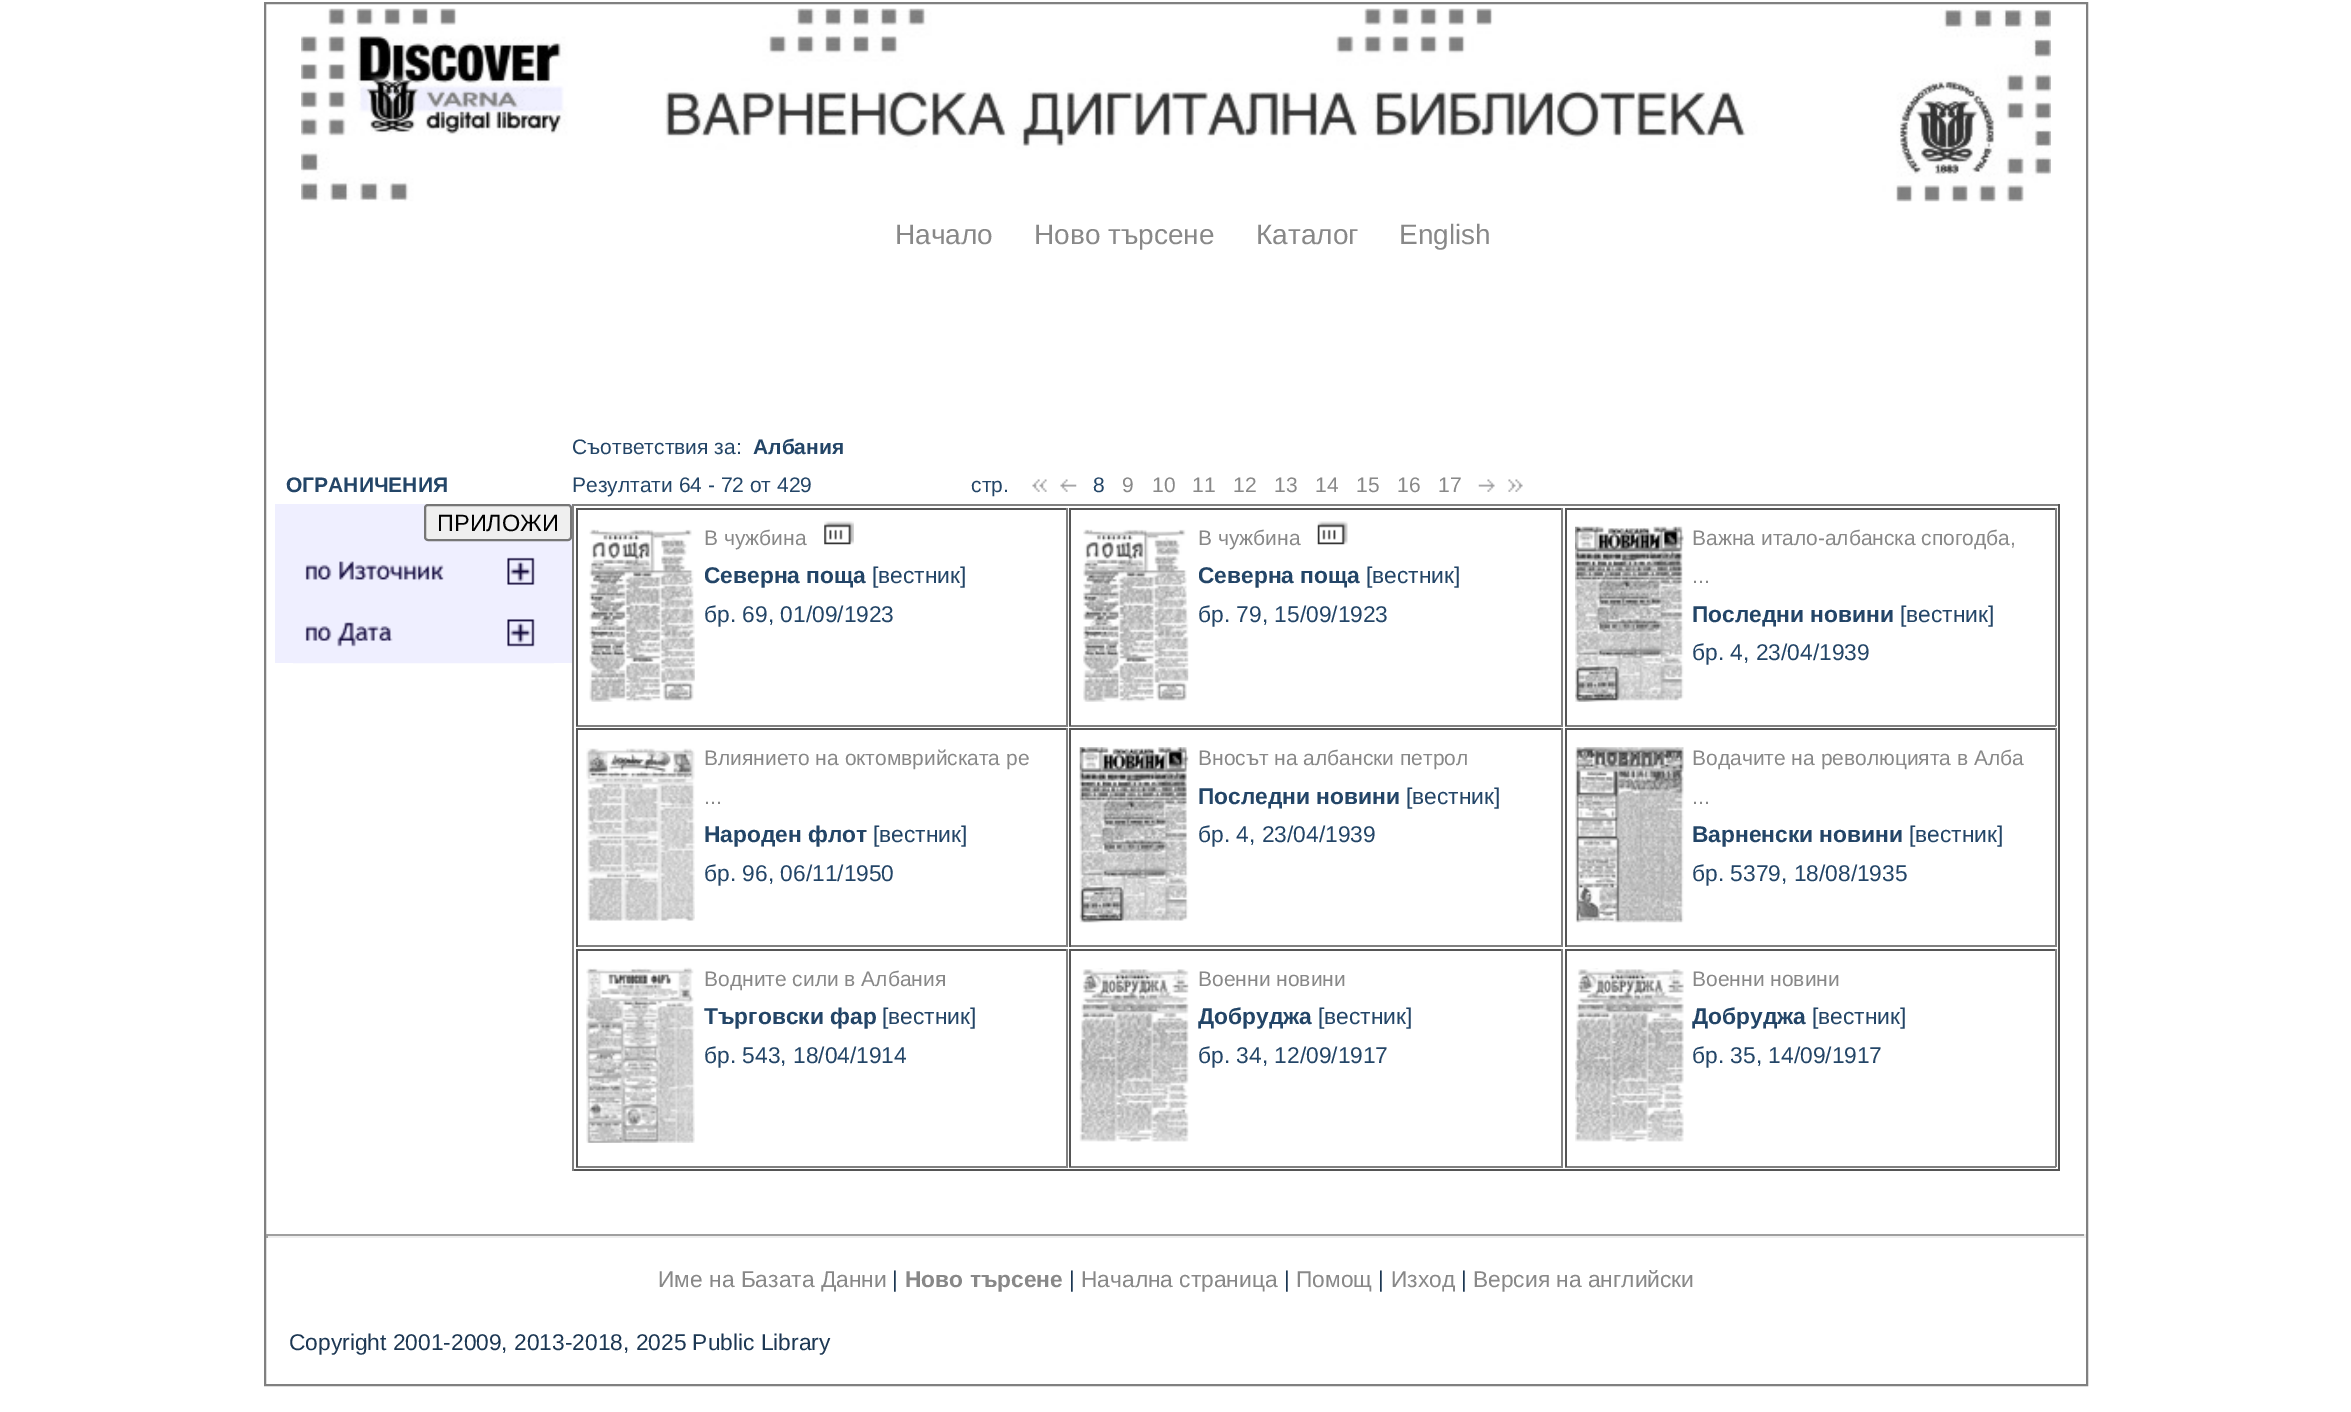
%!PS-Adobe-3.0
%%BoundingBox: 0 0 2351 1412
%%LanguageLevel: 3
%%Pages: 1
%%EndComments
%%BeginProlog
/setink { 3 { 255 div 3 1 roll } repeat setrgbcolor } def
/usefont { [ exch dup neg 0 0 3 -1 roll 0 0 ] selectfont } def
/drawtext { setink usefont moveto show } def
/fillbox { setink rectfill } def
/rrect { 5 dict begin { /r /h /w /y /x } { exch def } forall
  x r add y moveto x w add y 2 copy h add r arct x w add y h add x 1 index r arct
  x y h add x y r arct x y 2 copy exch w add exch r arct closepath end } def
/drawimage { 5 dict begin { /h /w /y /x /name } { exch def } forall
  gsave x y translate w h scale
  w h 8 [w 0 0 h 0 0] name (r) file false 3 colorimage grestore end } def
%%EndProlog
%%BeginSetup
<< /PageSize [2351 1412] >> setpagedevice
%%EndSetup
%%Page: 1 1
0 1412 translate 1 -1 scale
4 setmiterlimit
0 0 2351 1412 255 255 255 fillbox
128 128 128 setink
2 setlinewidth
265 3 1822 1382 rectstroke
(assets/img1.rgb) 301 8 1750 194 drawimage
(Начало) 895 244 /LiberationSans-Regular 28 136 136 136 drawtext
(Ново търсене) 1034 244 /LiberationSans-Regular 28 136 136 136 drawtext
(Каталог) 1256 244 /LiberationSans-Regular 28 136 136 136 drawtext
(English) 1399 244 /LiberationSans-Regular 28 136 136 136 drawtext
(ОГРАНИЧЕНИЯ) 286 492 /LiberationSans-Bold 21 35 69 103 drawtext
275 504 297 159 239 239 255 fillbox
239 239 239 setink
425 505 146 35 3 rrect gsave fill grestore
118 118 118 setink
stroke
(ПРИЛОЖИ) 437 531 /LiberationSans-Regular 23.5 0 0 0 drawtext
(assets/img2.rgb) 305 557 230 28 drawimage
(assets/img3.rgb) 293 619 261 45 drawimage
(Съответствия за:) 572 454 /LiberationSans-Regular 21 35 69 103 drawtext
(Албания) 753 454 /LiberationSans-Bold 21 35 69 103 drawtext
(Резултати 64 - 72 от 429) 572 492 /LiberationSans-Regular 21 35 69 103 drawtext
(стр.) 971 492 /LiberationSans-Regular 21 35 69 103 drawtext
(assets/img4.rgb) 1032 479 15 13 drawimage
(assets/img5.rgb) 1060 479 17 13 drawimage
(8) 1093 492 /LiberationSans-Regular 21 35 69 103 drawtext
(9) 1122 492 /LiberationSans-Regular 21 136 136 136 drawtext
(10) 1152 492 /LiberationSans-Regular 21 136 136 136 drawtext
(11) 1192 492 /LiberationSans-Regular 21 136 136 136 drawtext
(12) 1233 492 /LiberationSans-Regular 21 136 136 136 drawtext
(13) 1274 492 /LiberationSans-Regular 21 136 136 136 drawtext
(14) 1315 492 /LiberationSans-Regular 21 136 136 136 drawtext
(15) 1356 492 /LiberationSans-Regular 21 136 136 136 drawtext
(16) 1397 492 /LiberationSans-Regular 21 136 136 136 drawtext
(17) 1438 492 /LiberationSans-Regular 21 136 136 136 drawtext
(assets/img6.rgb) 1478 479 17 13 drawimage
(assets/img7.rgb) 1508 479 15 13 drawimage
572 504 1488 2 128 128 128 fillbox
2058 504 2 667 85 85 85 fillbox
572 1169 1488 2 85 85 85 fillbox
572 504 2 667 128 128 128 fillbox
576 508 492 2 85 85 85 fillbox
1066 508 2 218 128 128 128 fillbox
576 725 492 2 128 128 128 fillbox
576 508 2 218 85 85 85 fillbox
(assets/img8.rgb) 589 529 106 173 drawimage
(В чужбина) 704 545 /LiberationSans-Regular 21 136 136 136 drawtext
(assets/img9.rgb) 824 521 30 24 drawimage
(Северна поща) 704 583 /LiberationSans-Bold 22.75 35 69 103 drawtext
([вестник]) 872 583 /LiberationSans-Regular 22.75 35 69 103 drawtext
(бр. 69, 01/09/1923) 704 622 /LiberationSans-Regular 22.75 35 69 103 drawtext
1069 508 494 2 85 85 85 fillbox
1561 508 2 218 128 128 128 fillbox
1069 725 494 2 128 128 128 fillbox
1069 508 2 218 85 85 85 fillbox
(assets/img10.rgb) 1083 529 106 173 drawimage
(В чужбина) 1198 545 /LiberationSans-Regular 21 136 136 136 drawtext
(assets/img11.rgb) 1317 521 31 24 drawimage
(Северна поща) 1198 583 /LiberationSans-Bold 22.75 35 69 103 drawtext
([вестник]) 1366 583 /LiberationSans-Regular 22.75 35 69 103 drawtext
(бр. 79, 15/09/1923) 1198 622 /LiberationSans-Regular 22.75 35 69 103 drawtext
1565 508 491 2 85 85 85 fillbox
2055 508 2 218 128 128 128 fillbox
1565 725 491 2 128 128 128 fillbox
1565 508 2 218 85 85 85 fillbox
(assets/img12.rgb) 1575 526 109 176 drawimage
(Важна итало-албанска спогодба,) 1692 545 /LiberationSans-Regular 21 136 136 136 drawtext
(...) 1692 583 /LiberationSans-Regular 21 136 136 136 drawtext
(Последни новини) 1692 622 /LiberationSans-Bold 22.75 35 69 103 drawtext
([вестник]) 1900 622 /LiberationSans-Regular 22.75 35 69 103 drawtext
(бр. 4, 23/04/1939) 1692 660 /LiberationSans-Regular 22.75 35 69 103 drawtext
576 728 492 2 85 85 85 fillbox
1066 728 2 219 128 128 128 fillbox
576 945 492 2 128 128 128 fillbox
576 728 2 219 85 85 85 fillbox
(assets/img13.rgb) 586 748 109 173 drawimage
(Влиянието на октомврийската ре) 704 765 /LiberationSans-Regular 21 136 136 136 drawtext
(...) 704 804 /LiberationSans-Regular 21 136 136 136 drawtext
(Народен флот) 704 842 /LiberationSans-Bold 22.75 35 69 103 drawtext
([вестник]) 873 842 /LiberationSans-Regular 22.75 35 69 103 drawtext
(бр. 96, 06/11/1950) 704 881 /LiberationSans-Regular 22.75 35 69 103 drawtext
1069 728 494 2 85 85 85 fillbox
1561 728 2 219 128 128 128 fillbox
1069 945 494 2 128 128 128 fillbox
1069 728 2 219 85 85 85 fillbox
(assets/img14.rgb) 1079 747 110 176 drawimage
(Вносът на албански петрол) 1198 765 /LiberationSans-Regular 21 136 136 136 drawtext
(Последни новини) 1198 804 /LiberationSans-Bold 22.75 35 69 103 drawtext
([вестник]) 1406 804 /LiberationSans-Regular 22.75 35 69 103 drawtext
(бр. 4, 23/04/1939) 1198 842 /LiberationSans-Regular 22.75 35 69 103 drawtext
1565 728 491 2 85 85 85 fillbox
2055 728 2 219 128 128 128 fillbox
1565 945 491 2 128 128 128 fillbox
1565 728 2 219 85 85 85 fillbox
(assets/img15.rgb) 1575 747 109 176 drawimage
(Водачите на революцията в Алба) 1692 765 /LiberationSans-Regular 21 136 136 136 drawtext
(...) 1692 804 /LiberationSans-Regular 21 136 136 136 drawtext
(Варненски новини) 1692 842 /LiberationSans-Bold 22.75 35 69 103 drawtext
([вестник]) 1909 842 /LiberationSans-Regular 22.75 35 69 103 drawtext
(бр. 5379, 18/08/1935) 1692 881 /LiberationSans-Regular 22.75 35 69 103 drawtext
576 949 492 2 85 85 85 fillbox
1066 949 2 218 128 128 128 fillbox
576 1166 492 2 128 128 128 fillbox
576 949 2 218 85 85 85 fillbox
(assets/img16.rgb) 586 967 109 176 drawimage
(Водните сили в Албания) 704 986 /LiberationSans-Regular 21 136 136 136 drawtext
(Търговски фар) 704 1024 /LiberationSans-Bold 22.75 35 69 103 drawtext
([вестник]) 882 1024 /LiberationSans-Regular 22.75 35 69 103 drawtext
(бр. 543, 18/04/1914) 704 1063 /LiberationSans-Regular 22.75 35 69 103 drawtext
1069 949 494 2 85 85 85 fillbox
1561 949 2 218 128 128 128 fillbox
1069 1166 494 2 128 128 128 fillbox
1069 949 2 218 85 85 85 fillbox
(assets/img17.rgb) 1079 968 110 174 drawimage
(Военни новини) 1198 986 /LiberationSans-Regular 21 136 136 136 drawtext
(Добруджа) 1198 1024 /LiberationSans-Bold 22.75 35 69 103 drawtext
([вестник]) 1318 1024 /LiberationSans-Regular 22.75 35 69 103 drawtext
(бр. 34, 12/09/1917) 1198 1063 /LiberationSans-Regular 22.75 35 69 103 drawtext
1565 949 491 2 85 85 85 fillbox
2055 949 2 218 128 128 128 fillbox
1565 1166 491 2 128 128 128 fillbox
1565 949 2 218 85 85 85 fillbox
(assets/img18.rgb) 1575 968 109 174 drawimage
(Военни новини) 1692 986 /LiberationSans-Regular 21 136 136 136 drawtext
(Добруджа) 1692 1024 /LiberationSans-Bold 22.75 35 69 103 drawtext
([вестник]) 1812 1024 /LiberationSans-Regular 22.75 35 69 103 drawtext
(бр. 35, 14/09/1917) 1692 1063 /LiberationSans-Regular 22.75 35 69 103 drawtext
266 1234 1820 2 159 159 159 fillbox
2084 1234 2 4 238 238 238 fillbox
266 1236 1820 2 238 238 238 fillbox
266 1234 2 4 159 159 159 fillbox
(Име на Базата Данни) 658 1287 /LiberationSans-Regular 22.75 136 136 136 drawtext
(|) 892 1287 /LiberationSans-Regular 22.75 28 55 83 drawtext
(Ново търсене) 905 1287 /LiberationSans-Bold 22.75 136 136 136 drawtext
(|) 1069 1287 /LiberationSans-Regular 22.75 28 55 83 drawtext
(Начална страница) 1081 1287 /LiberationSans-Regular 22.75 136 136 136 drawtext
(|) 1284 1287 /LiberationSans-Regular 22.75 28 55 83 drawtext
(Помощ) 1296 1287 /LiberationSans-Regular 22.75 136 136 136 drawtext
(|) 1378 1287 /LiberationSans-Regular 22.75 28 55 83 drawtext
(Изход) 1391 1287 /LiberationSans-Regular 22.75 136 136 136 drawtext
(|) 1461 1287 /LiberationSans-Regular 22.75 28 55 83 drawtext
(Версия на английски) 1473 1287 /LiberationSans-Regular 22.75 136 136 136 drawtext
(Copyright 2001-2009, 2013-2018, 2025 Public Library) 289 1350 /LiberationSans-Regular 22.75 28 55 83 drawtext
showpage
%%EOF
